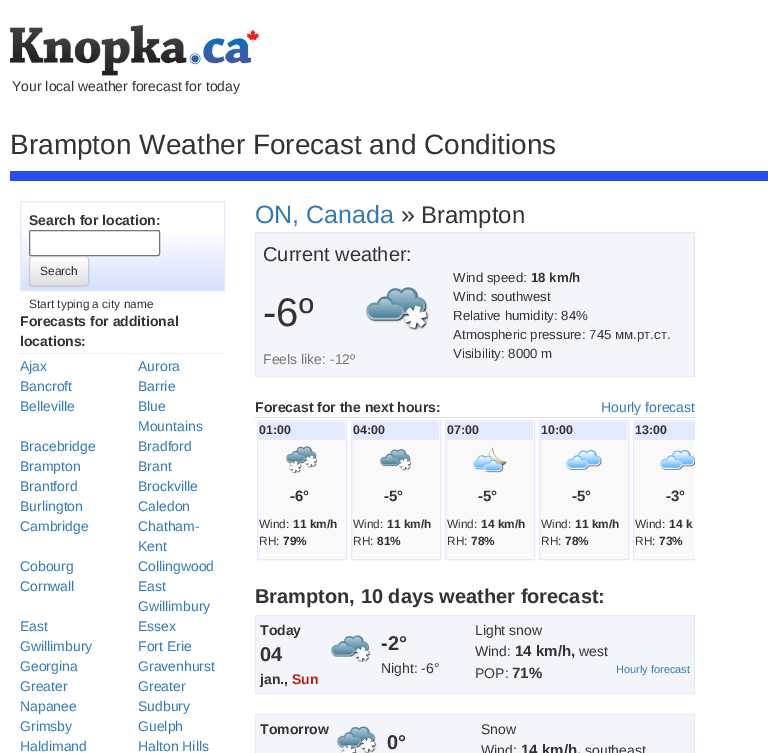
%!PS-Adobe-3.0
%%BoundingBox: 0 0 768 753
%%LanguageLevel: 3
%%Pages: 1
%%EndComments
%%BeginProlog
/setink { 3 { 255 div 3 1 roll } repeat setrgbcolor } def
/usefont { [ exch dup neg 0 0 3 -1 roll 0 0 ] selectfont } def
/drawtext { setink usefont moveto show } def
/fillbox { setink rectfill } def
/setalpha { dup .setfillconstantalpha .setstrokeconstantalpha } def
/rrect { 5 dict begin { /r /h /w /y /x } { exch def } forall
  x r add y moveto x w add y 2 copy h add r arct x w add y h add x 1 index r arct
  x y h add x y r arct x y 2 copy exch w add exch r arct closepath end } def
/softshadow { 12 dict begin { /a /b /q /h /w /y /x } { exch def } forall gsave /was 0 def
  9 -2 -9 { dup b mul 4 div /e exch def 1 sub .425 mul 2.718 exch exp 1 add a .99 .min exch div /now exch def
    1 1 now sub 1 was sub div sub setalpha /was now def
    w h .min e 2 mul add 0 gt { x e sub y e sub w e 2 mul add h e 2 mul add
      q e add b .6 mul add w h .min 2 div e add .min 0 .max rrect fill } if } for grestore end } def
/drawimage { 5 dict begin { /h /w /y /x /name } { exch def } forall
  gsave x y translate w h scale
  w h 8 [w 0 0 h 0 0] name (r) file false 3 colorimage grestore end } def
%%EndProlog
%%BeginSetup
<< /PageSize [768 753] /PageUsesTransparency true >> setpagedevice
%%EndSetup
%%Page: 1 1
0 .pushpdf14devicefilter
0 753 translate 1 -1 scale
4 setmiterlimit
0 0 768 753 255 255 255 fillbox
(assets/img1.rgb) 10 25 249 51 drawimage
(Your local weather forecast for today) 12 91 /LiberationSans-Regular 14 51 51 51 drawtext
(Brampton Weather Forecast and Conditions) 10 154 /LiberationSans-Regular 28 51 51 51 drawtext
10 171 758 10 41 78 239 fillbox
(assets/img2.rgb) 21 234 203 56 drawimage
227 234 255 setink
20.5 201.5 204 89 rectstroke
(Search for location:) 29 225 /LiberationSans-Bold 14 51 51 51 drawtext
255 255 255 setink
29.5 230.5 130 25 1.5 rrect gsave fill grestore
118 118 118 setink
stroke
0 0 0 setink
29 257 60 30 3 0.5 0.07 softshadow
gsave
29 256 60 30 3 rrect clip newpath
gsave 29 257 moveto 89 257 lineto 89 285 lineto 29 285 lineto closepath clip newpath
<< /ShadingType 2 /ColorSpace /DeviceRGB /Coords [59 257 59 285] /Extend [true true] /Function << /FunctionType 2 /Domain [0 1] /C0 [1 1 1] /C1 [0.878 0.878 0.878] /N 1 >> >> shfill grestore
grestore
204 204 204 setink
29.5 256.5 59 29 2.5 rrect stroke
(Search) 40 275 /LiberationSans-Regular 12 51 51 51 drawtext
(Start typing a city name) 29 308 /LiberationSans-Regular 11.9 51 51 51 drawtext
(Forecasts for additional) 20 326 /LiberationSans-Bold 14 51 51 51 drawtext
(locations:) 20 346 /LiberationSans-Bold 14 51 51 51 drawtext
20 353 205 1 238 238 238 fillbox
(Ajax) 20 371 /LiberationSans-Regular 14 51 122 183 drawtext
(Aurora) 138 371 /LiberationSans-Regular 14 51 122 183 drawtext
(Bancroft) 20 391 /LiberationSans-Regular 14 51 122 183 drawtext
(Barrie) 138 391 /LiberationSans-Regular 14 51 122 183 drawtext
(Belleville) 20 411 /LiberationSans-Regular 14 51 122 183 drawtext
(Blue) 138 411 /LiberationSans-Regular 14 51 122 183 drawtext
(Mountains) 138 431 /LiberationSans-Regular 14 51 122 183 drawtext
(Bracebridge) 20 451 /LiberationSans-Regular 14 51 122 183 drawtext
(Bradford) 138 451 /LiberationSans-Regular 14 51 122 183 drawtext
(Brampton) 20 471 /LiberationSans-Regular 14 51 122 183 drawtext
(Brant) 138 471 /LiberationSans-Regular 14 51 122 183 drawtext
(Brantford) 20 491 /LiberationSans-Regular 14 51 122 183 drawtext
(Brockville) 138 491 /LiberationSans-Regular 14 51 122 183 drawtext
(Burlington) 20 511 /LiberationSans-Regular 14 51 122 183 drawtext
(Caledon) 138 511 /LiberationSans-Regular 14 51 122 183 drawtext
(Cambridge) 20 531 /LiberationSans-Regular 14 51 122 183 drawtext
(Chatham-) 138 531 /LiberationSans-Regular 14 51 122 183 drawtext
(Kent) 138 551 /LiberationSans-Regular 14 51 122 183 drawtext
(Cobourg) 20 571 /LiberationSans-Regular 14 51 122 183 drawtext
(Collingwood) 138 571 /LiberationSans-Regular 14 51 122 183 drawtext
(Cornwall) 20 591 /LiberationSans-Regular 14 51 122 183 drawtext
(East) 138 591 /LiberationSans-Regular 14 51 122 183 drawtext
(Gwillimbury) 138 611 /LiberationSans-Regular 14 51 122 183 drawtext
(East) 20 631 /LiberationSans-Regular 14 51 122 183 drawtext
(Gwillimbury) 20 651 /LiberationSans-Regular 14 51 122 183 drawtext
(Essex) 138 631 /LiberationSans-Regular 14 51 122 183 drawtext
(Fort Erie) 138 651 /LiberationSans-Regular 14 51 122 183 drawtext
(Georgina) 20 671 /LiberationSans-Regular 14 51 122 183 drawtext
(Gravenhurst) 138 671 /LiberationSans-Regular 14 51 122 183 drawtext
(Greater) 20 691 /LiberationSans-Regular 14 51 122 183 drawtext
(Napanee) 20 711 /LiberationSans-Regular 14 51 122 183 drawtext
(Greater) 138 691 /LiberationSans-Regular 14 51 122 183 drawtext
(Sudbury) 138 711 /LiberationSans-Regular 14 51 122 183 drawtext
(Grimsby) 20 731 /LiberationSans-Regular 14 51 122 183 drawtext
(Guelph) 138 731 /LiberationSans-Regular 14 51 122 183 drawtext
(Haldimand) 20 751 /LiberationSans-Regular 14 51 122 183 drawtext
(Halton Hills) 138 751 /LiberationSans-Regular 14 51 122 183 drawtext
(ON, Canada) 255 223 /LiberationSans-Regular 25 51 122 183 drawtext
(») 401 223 /LiberationSans-Regular 25 51 51 51 drawtext
(Brampton) 421 223 /LiberationSans-Regular 24 51 51 51 drawtext
243 245 250 setink
255.5 232.5 moveto 694.5 232.5 lineto 694.5 376.5 lineto 255.5 376.5 lineto closepath gsave fill grestore
227 234 255 setink
stroke
(Current weather:) 263 261 /LiberationSans-Regular 20 51 51 51 drawtext
(-6º) 263 326 /LiberationSans-Regular 40 51 51 51 drawtext
(assets/img3.rgb) 366 287 63 44 drawimage
(Feels like: -12º) 263 364 /LiberationSans-Regular 14 119 119 119 drawtext
(Wind speed:) 453 282 /LiberationSans-Regular 13.25 51 51 51 drawtext
(18 km/h) 531 282 /LiberationSans-Bold 13.25 51 51 51 drawtext
(Wind: southwest) 453 301 /LiberationSans-Regular 13.25 51 51 51 drawtext
(Relative humidity: 84%) 453 320 /LiberationSans-Regular 13.25 51 51 51 drawtext
(Atmospheric pressure: 745 мм.рт.ст.) 453 339 /LiberationSans-Regular 13.25 51 51 51 drawtext
(Visibility: 8000 m) 453 358 /LiberationSans-Regular 13.25 51 51 51 drawtext
(Forecast for the next hours:) 255 412 /LiberationSans-Bold 14 51 51 51 drawtext
(Hourly forecast) 601 412 /LiberationSans-Regular 14 51 122 183 drawtext
249 249 249 setink
257.5 420.5 moveto 346.5 420.5 lineto 346.5 559.5 lineto 257.5 559.5 lineto closepath gsave fill grestore
227 234 255 setink
stroke
259 422 86 18 227 234 255 fillbox
(01:00) 259 434 /LiberationSans-Bold 12.5 51 51 51 drawtext
(assets/img4.rgb) 286 446 32 28 drawimage
(-6°) 290 501 /LiberationSans-Bold 15 51 51 51 drawtext
(Wind:) 259 528 /LiberationSans-Regular 11.9 51 51 51 drawtext
(11 km/h) 293 528 /LiberationSans-Bold 11.9 51 51 51 drawtext
(RH:) 259 545 /LiberationSans-Regular 11.9 51 51 51 drawtext
(79%) 283 545 /LiberationSans-Bold 11.9 51 51 51 drawtext
249 249 249 setink
351.5 420.5 moveto 440.5 420.5 lineto 440.5 559.5 lineto 351.5 559.5 lineto closepath gsave fill grestore
227 234 255 setink
stroke
353 422 86 18 227 234 255 fillbox
(04:00) 353 434 /LiberationSans-Bold 12.5 51 51 51 drawtext
(assets/img5.rgb) 380 449 32 22 drawimage
(-5°) 384 501 /LiberationSans-Bold 15 51 51 51 drawtext
(Wind:) 353 528 /LiberationSans-Regular 11.9 51 51 51 drawtext
(11 km/h) 387 528 /LiberationSans-Bold 11.9 51 51 51 drawtext
(RH:) 353 545 /LiberationSans-Regular 11.9 51 51 51 drawtext
(81%) 377 545 /LiberationSans-Bold 11.9 51 51 51 drawtext
249 249 249 setink
445.5 420.5 moveto 534.5 420.5 lineto 534.5 559.5 lineto 445.5 559.5 lineto closepath gsave fill grestore
227 234 255 setink
stroke
447 422 86 18 227 234 255 fillbox
(07:00) 447 434 /LiberationSans-Bold 12.5 51 51 51 drawtext
(assets/img6.rgb) 473 447 34 26 drawimage
(-5°) 478 501 /LiberationSans-Bold 15 51 51 51 drawtext
(Wind:) 447 528 /LiberationSans-Regular 11.9 51 51 51 drawtext
(14 km/h) 481 528 /LiberationSans-Bold 11.9 51 51 51 drawtext
(RH:) 447 545 /LiberationSans-Regular 11.9 51 51 51 drawtext
(78%) 471 545 /LiberationSans-Bold 11.9 51 51 51 drawtext
249 249 249 setink
539.5 420.5 moveto 628.5 420.5 lineto 628.5 559.5 lineto 539.5 559.5 lineto closepath gsave fill grestore
227 234 255 setink
stroke
541 422 86 18 227 234 255 fillbox
(10:00) 541 434 /LiberationSans-Bold 12.5 51 51 51 drawtext
(assets/img7.rgb) 566 450 36 20 drawimage
(-5°) 572 501 /LiberationSans-Bold 15 51 51 51 drawtext
(Wind:) 541 528 /LiberationSans-Regular 11.9 51 51 51 drawtext
(11 km/h) 575 528 /LiberationSans-Bold 11.9 51 51 51 drawtext
(RH:) 541 545 /LiberationSans-Regular 11.9 51 51 51 drawtext
(78%) 565 545 /LiberationSans-Bold 11.9 51 51 51 drawtext
255 417 440 1 221 221 221 fillbox
634 421 61 138 249 249 249 fillbox
gsave
255 417 440 165 rectclip
227 234 255 setink
633.5 420.5 89 139 rectstroke
grestore
635 422 60 18 227 234 255 fillbox
(13:00) 635 434 /LiberationSans-Bold 12.5 51 51 51 drawtext
(assets/img8.rgb) 660 450 35 20 drawimage
(-3°) 666 501 /LiberationSans-Bold 15 51 51 51 drawtext
(Wind:) 635 528 /LiberationSans-Regular 11.9 51 51 51 drawtext
(14 k) 669 528 /LiberationSans-Bold 11.9 51 51 51 drawtext
(RH:) 635 545 /LiberationSans-Regular 11.9 51 51 51 drawtext
(73%) 659 545 /LiberationSans-Bold 11.9 51 51 51 drawtext
(Brampton, 10 days weather forecast:) 255 603 /LiberationSans-Bold 20 51 51 51 drawtext
256 616 438 77 243 245 250 fillbox
255 615 440 1 227 234 255 fillbox
694 615 1 79 227 234 255 fillbox
255 693 440 1 227 234 255 fillbox
255 615 1 79 227 234 255 fillbox
(Today) 260 635 /LiberationSans-Bold 14 51 51 51 drawtext
(04) 260 661 /LiberationSans-Bold 20 51 51 51 drawtext
(jan.,) 260 684 /LiberationSans-Bold 14 51 51 51 drawtext
(Sun) 292 684 /LiberationSans-Bold 14 182 34 24 drawtext
(assets/img9.rgb) 331 635 40 28 drawimage
(-2°) 381 650 /LiberationSans-Bold 20 51 51 51 drawtext
(Night: -6°) 381 673 /LiberationSans-Regular 14 51 51 51 drawtext
(Light snow) 475 635 /LiberationSans-Regular 14 51 51 51 drawtext
(Wind:) 475 656 /LiberationSans-Regular 14 51 51 51 drawtext
(14 km/h,) 515 656 /LiberationSans-Bold 15 51 51 51 drawtext
(west) 579 656 /LiberationSans-Regular 14 51 51 51 drawtext
(POP:) 475 678 /LiberationSans-Regular 14 51 51 51 drawtext
(71%) 512 678 /LiberationSans-Bold 15 51 51 51 drawtext
(Hourly forecast) 616 673 /LiberationSans-Regular 11 51 122 183 drawtext
256 715 438 38 243 245 250 fillbox
255 714 440 1 227 234 255 fillbox
694 714 1 39 227 234 255 fillbox
255 714 1 39 227 234 255 fillbox
(Tomorrow) 260 734 /LiberationSans-Bold 14 51 51 51 drawtext
(assets/img10.rgb) 337 726 40 27 drawimage
(0°) 387 749 /LiberationSans-Bold 20 51 51 51 drawtext
(Snow) 481 734 /LiberationSans-Regular 14 51 51 51 drawtext
(Wind:) 481 755 /LiberationSans-Regular 14 51 51 51 drawtext
(14 km/h,) 521 755 /LiberationSans-Bold 15 51 51 51 drawtext
(southeast) 585 755 /LiberationSans-Regular 14 51 51 51 drawtext
.poppdf14devicefilter showpage
%%EOF
